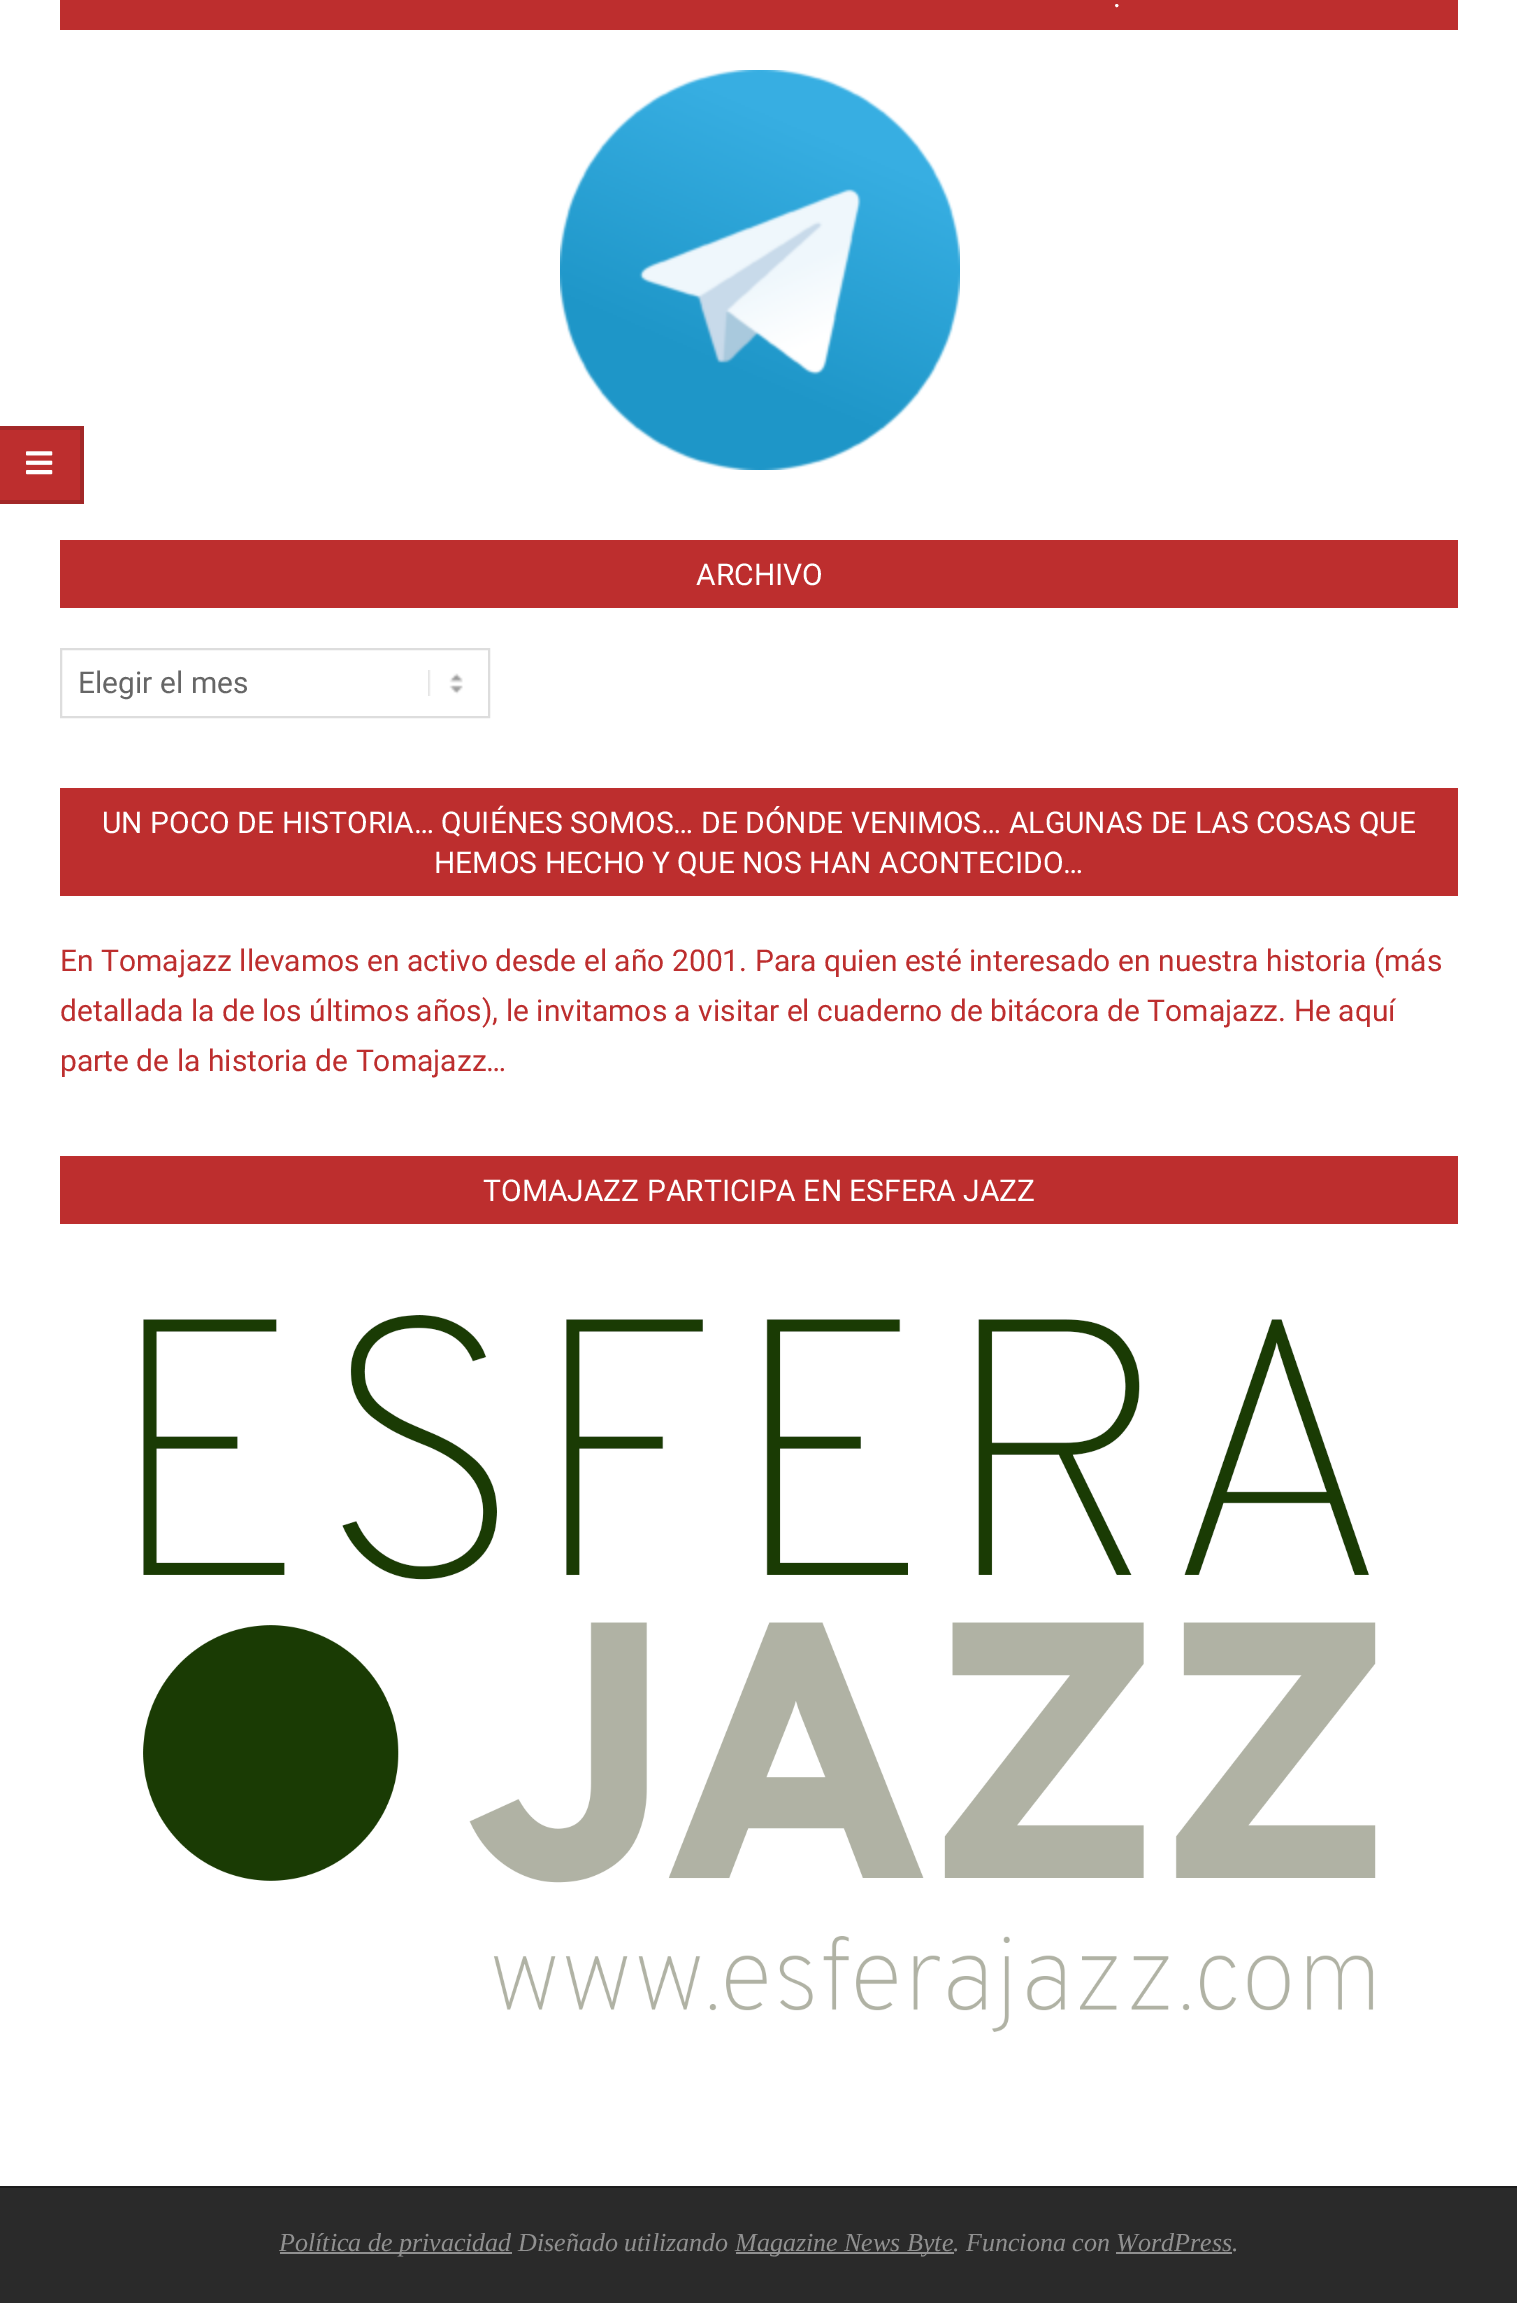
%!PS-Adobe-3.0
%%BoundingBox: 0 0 1517 2303
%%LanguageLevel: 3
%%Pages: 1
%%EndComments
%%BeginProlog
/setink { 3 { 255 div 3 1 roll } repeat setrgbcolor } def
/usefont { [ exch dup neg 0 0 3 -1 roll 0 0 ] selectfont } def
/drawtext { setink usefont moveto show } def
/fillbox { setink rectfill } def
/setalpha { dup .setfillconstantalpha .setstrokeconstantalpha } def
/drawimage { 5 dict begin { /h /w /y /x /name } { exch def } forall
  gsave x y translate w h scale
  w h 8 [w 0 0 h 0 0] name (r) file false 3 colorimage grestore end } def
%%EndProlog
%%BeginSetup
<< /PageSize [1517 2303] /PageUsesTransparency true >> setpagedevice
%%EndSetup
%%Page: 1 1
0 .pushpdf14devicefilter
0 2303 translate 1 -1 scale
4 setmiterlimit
0 0 1517 2303 255 255 255 fillbox
0 426 84 78 189 46 46 fillbox
163 40 40 setink
0 426 moveto 84 426 lineto 80 430 lineto 0 430 lineto closepath fill
0.14 setalpha
0 0 0 setink
84 426 moveto 84 504 lineto 80 500 lineto 80 430 lineto closepath fill
84 504 moveto 0 504 lineto 0 500 lineto 80 500 lineto closepath fill
1 setalpha
(assets/img1.rgb) 26 451 27 24 drawimage
60 0 1398 30 189 46 46 fillbox
(.) 1113 7 /Roboto-Regular 30 255 255 255 drawtext
(assets/img2.rgb) 560 70 400 400 drawimage
60 540 1398 68 189 46 46 fillbox
(ARCHIVO) 696 585 /Roboto-Regular 30 255 255 255 drawtext
(assets/img3.rgb) 428 670 35 26 drawimage
221 221 221 setink
2 setlinewidth
61 649 428 68 rectstroke
(Elegir el mes) 78 693 /Roboto-Regular 30 102 102 102 drawtext
60 788 1398 108 189 46 46 fillbox
(UN POCO DE HISTORIA… QUIÉNES SOMOS… DE DÓNDE VENIMOS… ALGUNAS DE LAS COSAS QUE) 102 833 /Roboto-Regular 30 255 255 255 drawtext
(HEMOS HECHO Y QUE NOS HAN ACONTECIDO…) 434 873 /Roboto-Regular 30 255 255 255 drawtext
(En Tomajazz llevamos en activo desde el año 2001. Para quien esté interesado en nuestra historia \(más) 60 971 /Roboto-Regular 30 189 46 46 drawtext
(detallada la de los últimos años\), le invitamos a visitar el cuaderno de bitácora de Tomajazz. He aquí) 60 1021 /Roboto-Regular 30 189 46 46 drawtext
(parte de la historia de Tomajazz…) 60 1071 /Roboto-Regular 30 189 46 46 drawtext
60 1156 1398 68 189 46 46 fillbox
(TOMAJAZZ PARTICIPA EN ESFERA JAZZ) 483 1201 /Roboto-Regular 30 255 255 255 drawtext
(assets/img4.rgb) 143 1315 1233 717 drawimage
0 2188 1517 115 42 42 42 fillbox
0 2186 1517 2 28 28 28 fillbox
280 2252 232 2 144 144 144 fillbox
(Política de privacidad Diseñado utilizando) 279 2251 /LiberationSerif-Italic 26 144 144 144 drawtext
736 2252 218 2 144 144 144 fillbox
(Magazine News Byte. Funciona con WordPress.) 735 2251 /LiberationSerif-Italic 26 144 144 144 drawtext
1116 2252 116 2 144 144 144 fillbox
.poppdf14devicefilter showpage
%%EOF
